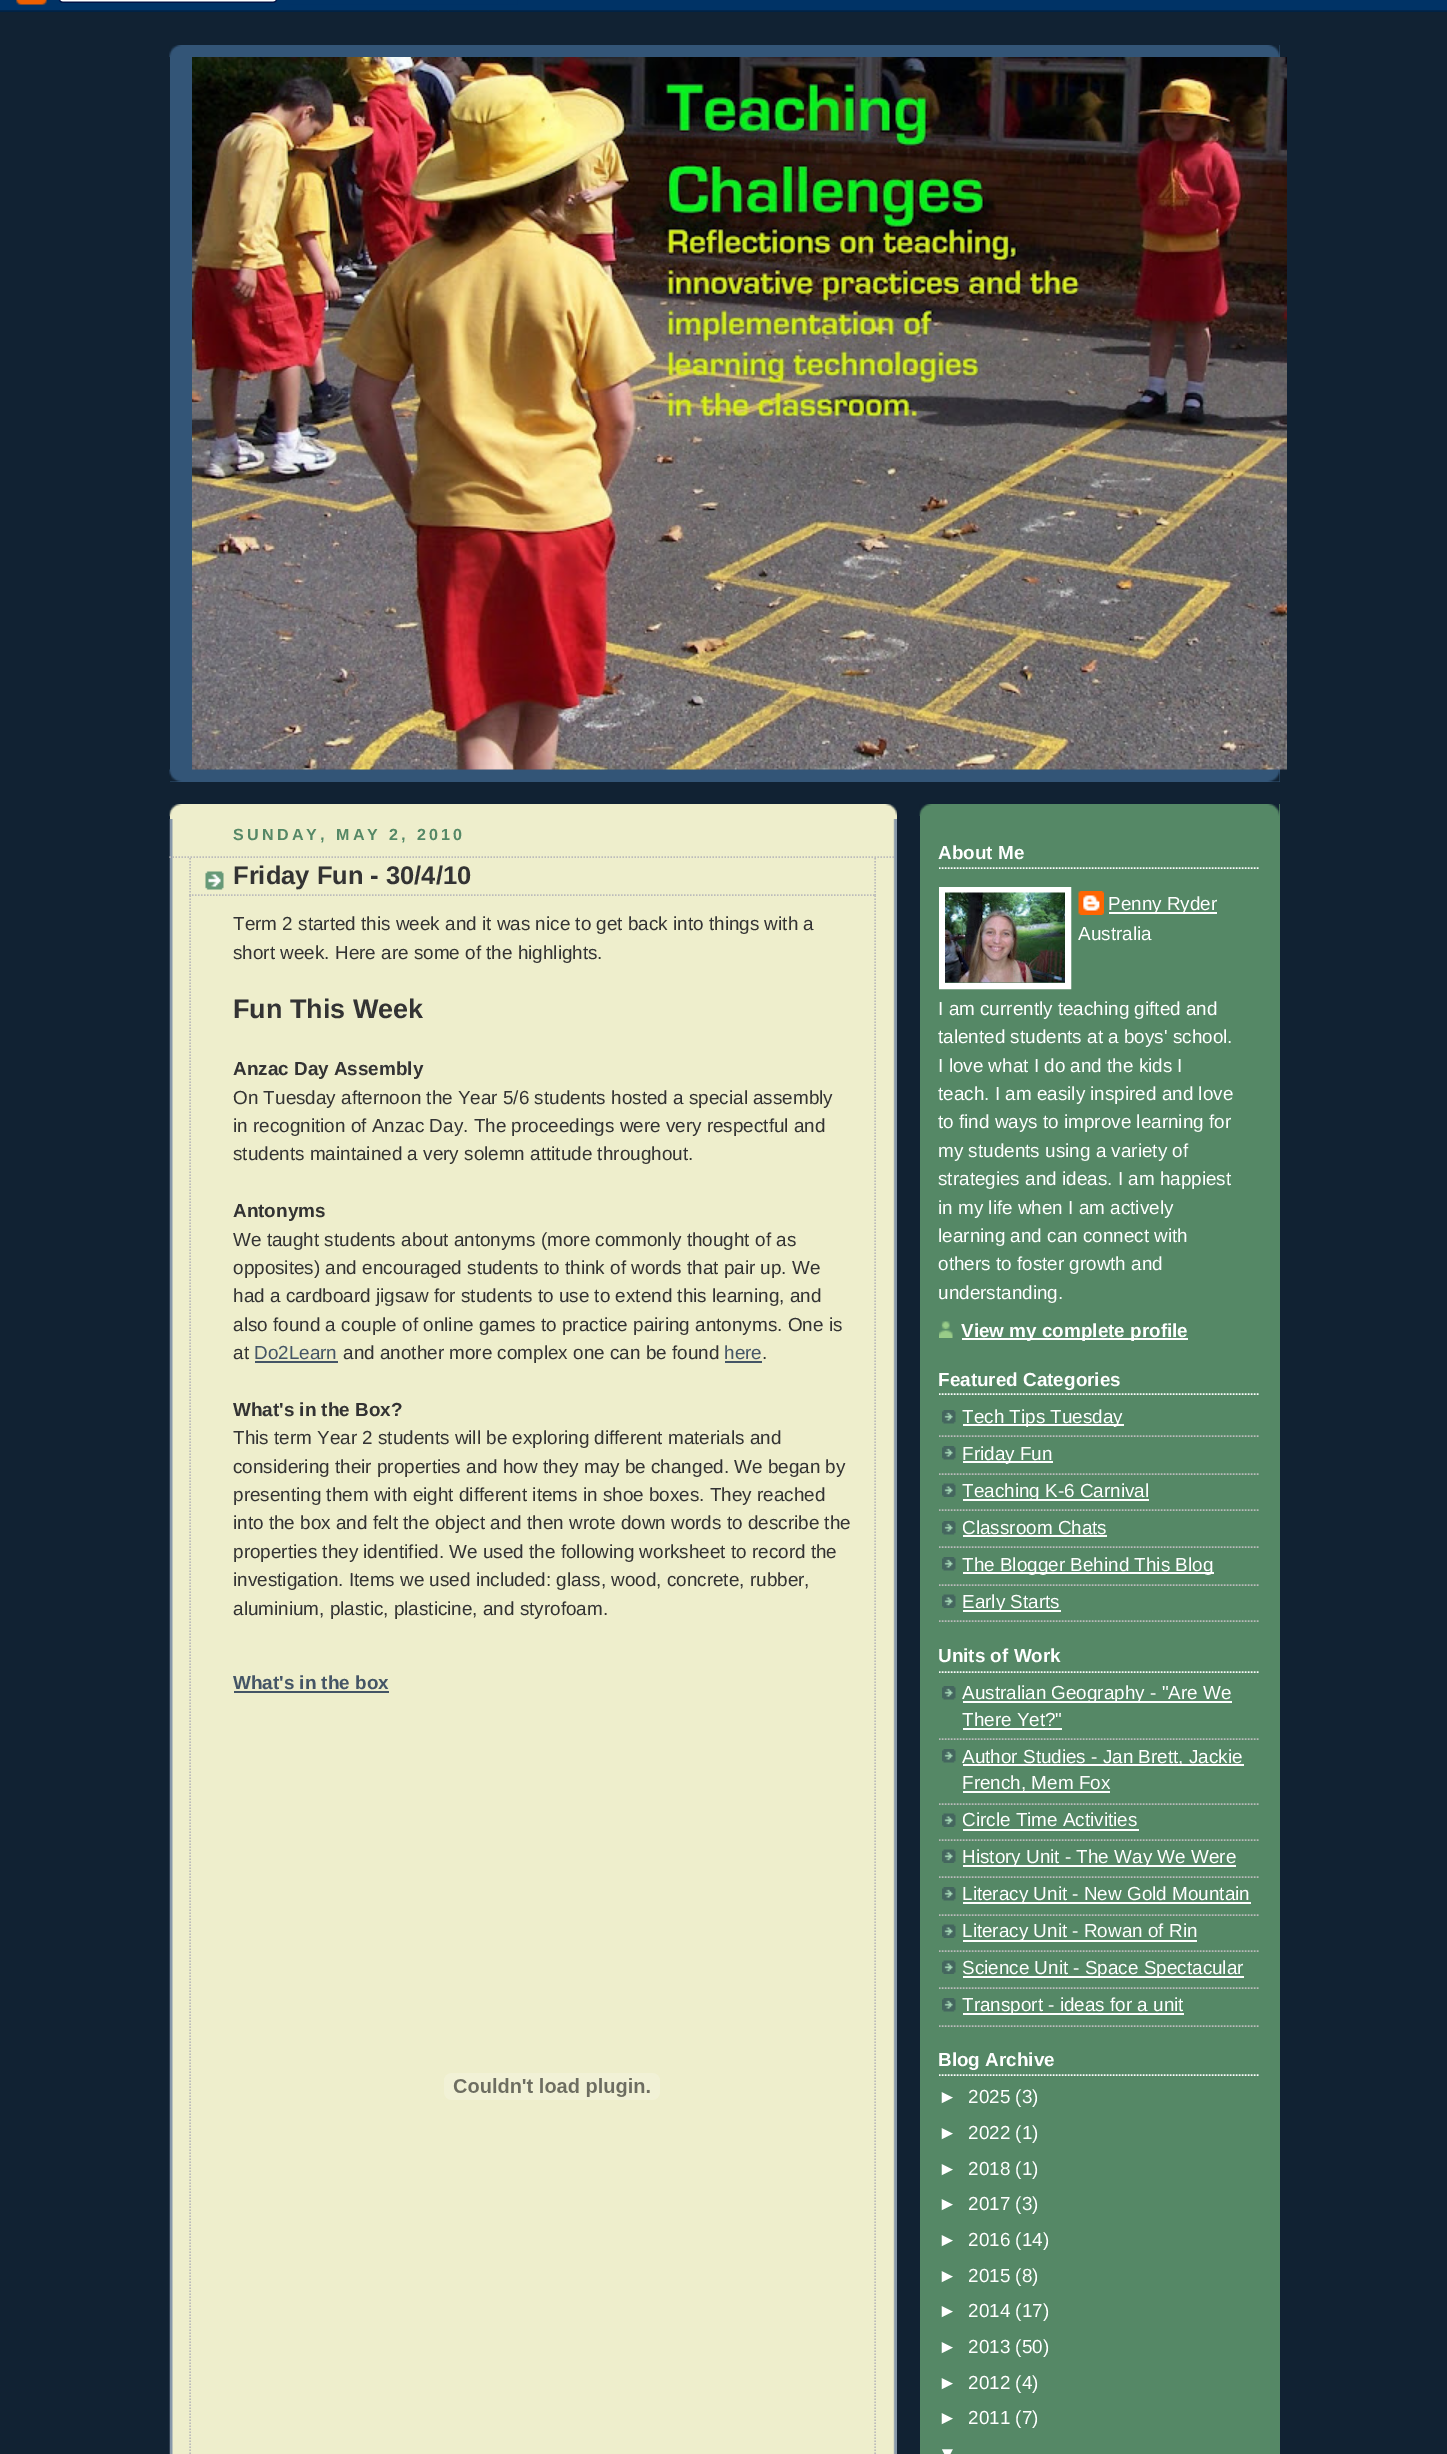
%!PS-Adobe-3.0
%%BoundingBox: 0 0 1447 2454
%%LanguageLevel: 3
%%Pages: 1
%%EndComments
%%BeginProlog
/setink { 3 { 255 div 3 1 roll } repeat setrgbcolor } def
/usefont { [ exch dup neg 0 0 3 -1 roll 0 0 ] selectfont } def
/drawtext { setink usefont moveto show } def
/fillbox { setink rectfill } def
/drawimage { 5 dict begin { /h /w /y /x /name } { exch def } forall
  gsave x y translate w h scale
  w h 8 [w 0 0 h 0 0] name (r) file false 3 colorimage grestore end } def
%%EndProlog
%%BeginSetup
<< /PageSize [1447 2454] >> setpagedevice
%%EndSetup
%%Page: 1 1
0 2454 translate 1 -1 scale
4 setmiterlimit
0 0 1447 2454 17 34 51 fillbox
(assets/img1.rgb) 0 0 1447 12 drawimage
170 45 1110 737 51 85 119 fillbox
(assets/img2.rgb) 169 45 1111 12 drawimage
(assets/img3.rgb) 169 769 1111 13 drawimage
(assets/img4.rgb) 192 57 1095 713 drawimage
170 804 727 1650 238 238 204 fillbox
(assets/img5.rgb) 169 804 728 13 drawimage
(assets/img6.rgb) 169 819 728 1635 drawimage
/LiberationSans-Bold 16.1 usefont
85 136 102 setink
233 840 moveto 3.25 0 (SUNDAY, MAY 2, 2010) ashow
187 187 187 setink
1.5 setlinewidth
[1.5 1.5] 0 setdash
169.5 857 moveto 895.5 857 lineto stroke
(assets/img7.rgb) 205 871 19 19 drawimage
875 858 moveto 875 895.5 lineto stroke
189 895 moveto 876 895 lineto stroke
190 858 moveto 190 895.5 lineto stroke
(Friday Fun - 30/4/10) 233 884 /LiberationSans-Bold 25.5 51 51 51 drawtext
187 187 187 setink
875 895.5 moveto 875 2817 lineto stroke
190 895.5 moveto 190 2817 lineto stroke
(Term 2 started this week and it was nice to get back into things with a) 233 930 /LiberationSans-Regular 18.9 51 51 51 drawtext
(short week. Here are some of the highlights.) 233 959 /LiberationSans-Regular 18.9 51 51 51 drawtext
(Fun This Week) 233 1018 /LiberationSans-Bold 27 51 51 51 drawtext
(Anzac Day Assembly) 233 1075 /LiberationSans-Bold 18.9 51 51 51 drawtext
(On Tuesday afternoon the Year 5/6 students hosted a special assembly) 233 1104 /LiberationSans-Regular 18.9 51 51 51 drawtext
(in recognition of Anzac Day. The proceedings were very respectful and) 233 1132 /LiberationSans-Regular 18.9 51 51 51 drawtext
(students maintained a very solemn attitude throughout.) 233 1160 /LiberationSans-Regular 18.9 51 51 51 drawtext
(Antonyms) 233 1217 /LiberationSans-Bold 18.9 51 51 51 drawtext
(We taught students about antonyms \(more commonly thought of as) 233 1246 /LiberationSans-Regular 18.9 51 51 51 drawtext
(opposites\) and encouraged students to think of words that pair up. We) 233 1274 /LiberationSans-Regular 18.9 51 51 51 drawtext
(had a cardboard jigsaw for students to use to extend this learning, and) 233 1302 /LiberationSans-Regular 18.9 51 51 51 drawtext
(also found a couple of online games to practice pairing antonyms. One is) 233 1331 /LiberationSans-Regular 18.9 51 51 51 drawtext
(at) 233 1359 /LiberationSans-Regular 18.9 51 51 51 drawtext
(Do2Learn) 254 1359 /LiberationSans-Regular 18.9 68 85 102 drawtext
255 1361 83 2 68 85 102 fillbox
(and another more complex one can be found) 343 1359 /LiberationSans-Regular 18.9 51 51 51 drawtext
(here) 724 1359 /LiberationSans-Regular 18.9 68 85 102 drawtext
725 1361 37 2 68 85 102 fillbox
(.) 762 1359 /LiberationSans-Regular 18.9 51 51 51 drawtext
(What's in the Box?) 233 1416 /LiberationSans-Bold 18.9 51 51 51 drawtext
(This term Year 2 students will be exploring different materials and) 233 1444 /LiberationSans-Regular 18.9 51 51 51 drawtext
(considering their properties and how they may be changed. We began by) 233 1473 /LiberationSans-Regular 18.9 51 51 51 drawtext
(presenting them with eight different items in shoe boxes. They reached) 233 1501 /LiberationSans-Regular 18.9 51 51 51 drawtext
(into the box and felt the object and then wrote down words to describe the) 233 1529 /LiberationSans-Regular 18.9 51 51 51 drawtext
(properties they identified. We used the following worksheet to record the) 233 1558 /LiberationSans-Regular 18.9 51 51 51 drawtext
(investigation. Items we used included: glass, wood, concrete, rubber,) 233 1586 /LiberationSans-Regular 18.9 51 51 51 drawtext
(aluminium, plastic, plasticine, and styrofoam.) 233 1615 /LiberationSans-Regular 18.9 51 51 51 drawtext
(What's in the box) 233 1689 /LiberationSans-Bold 18.9 68 85 102 drawtext
234 1691 155 2 68 85 102 fillbox
(assets/img8.rgb) 444 2073 216 27 drawimage
920 804 360 1650 85 136 102 fillbox
(assets/img9.rgb) 919 804 361 12 drawimage
255 255 255 setink
939 868 moveto 1260 868 lineto stroke
(About Me) 938 859 /LiberationSans-Bold 18.9 255 255 255 drawtext
6 setlinewidth
[] 0 setdash
942 890 126 96 rectstroke
(assets/img10.rgb) 945 892 120 91 drawimage
(assets/img11.rgb) 1078 891 26 24 drawimage
1109 912 108 2 255 255 255 fillbox
(Penny Ryder) 1108 910 /LiberationSans-Regular 18.9 255 255 255 drawtext
(Australia) 1078 940 /LiberationSans-Regular 18.9 255 255 255 drawtext
(I am currently teaching gifted and) 938 1015 /LiberationSans-Regular 18.9 255 255 255 drawtext
(talented students at a boys' school.) 938 1043 /LiberationSans-Regular 18.9 255 255 255 drawtext
(I love what I do and the kids I) 938 1072 /LiberationSans-Regular 18.9 255 255 255 drawtext
(teach. I am easily inspired and love) 938 1100 /LiberationSans-Regular 18.9 255 255 255 drawtext
(to find ways to improve learning for) 938 1128 /LiberationSans-Regular 18.9 255 255 255 drawtext
(my students using a variety of) 938 1157 /LiberationSans-Regular 18.9 255 255 255 drawtext
(strategies and ideas. I am happiest) 938 1185 /LiberationSans-Regular 18.9 255 255 255 drawtext
(in my life when I am actively) 938 1214 /LiberationSans-Regular 18.9 255 255 255 drawtext
(learning and can connect with) 938 1242 /LiberationSans-Regular 18.9 255 255 255 drawtext
(others to foster growth and) 938 1270 /LiberationSans-Regular 18.9 255 255 255 drawtext
(understanding.) 938 1299 /LiberationSans-Regular 18.9 255 255 255 drawtext
(assets/img12.rgb) 939 1321 14 17 drawimage
962 1338 226 2 255 255 255 fillbox
(View my complete profile) 961 1337 /LiberationSans-Bold 18.9 255 255 255 drawtext
1.5 setlinewidth
[1.5 1.5] 0 setdash
939 1394 moveto 1260 1394 lineto stroke
(Featured Categories) 938 1386 /LiberationSans-Bold 18.9 255 255 255 drawtext
(assets/img13.rgb) 942 1410 14 14 drawimage
187 187 187 setink
939 1436 moveto 1260 1436 lineto stroke
963 1424 161 2 255 255 255 fillbox
(Tech Tips Tuesday) 962 1423 /LiberationSans-Regular 18.9 255 255 255 drawtext
(assets/img13.rgb) 942 1446 14 14 drawimage
187 187 187 setink
939 1474 moveto 1260 1474 lineto stroke
963 1461 90 2 255 255 255 fillbox
(Friday Fun) 962 1460 /LiberationSans-Regular 18.9 255 255 255 drawtext
(assets/img14.rgb) 942 1483 14 14 drawimage
187 187 187 setink
939 1510 moveto 1260 1510 lineto stroke
963 1499 186 2 255 255 255 fillbox
(Teaching K-6 Carnival) 962 1497 /LiberationSans-Regular 18.9 255 255 255 drawtext
(assets/img13.rgb) 942 1521 14 14 drawimage
187 187 187 setink
939 1547 moveto 1260 1547 lineto stroke
(Classroom Chats) 962 1534 /LiberationSans-Regular 18.9 255 255 255 drawtext
963 1535 144 2 255 255 255 fillbox
(assets/img13.rgb) 942 1557 14 14 drawimage
187 187 187 setink
939 1585 moveto 1260 1585 lineto stroke
963 1572 251 2 255 255 255 fillbox
(The Blogger Behind This Blog) 962 1571 /LiberationSans-Regular 18.9 255 255 255 drawtext
(assets/img14.rgb) 942 1594 14 14 drawimage
187 187 187 setink
939 1621 moveto 1260 1621 lineto stroke
963 1610 98 2 255 255 255 fillbox
(Early Starts) 962 1608 /LiberationSans-Regular 18.9 255 255 255 drawtext
939 1672 moveto 1260 1672 lineto stroke
(Units of Work) 938 1662 /LiberationSans-Bold 18.9 255 255 255 drawtext
(assets/img13.rgb) 942 1686 14 14 drawimage
187 187 187 setink
939 1739 moveto 1260 1739 lineto stroke
963 1701 269 2 255 255 255 fillbox
(Australian Geography - "Are We) 962 1699 /LiberationSans-Regular 18.9 255 255 255 drawtext
(There Yet?") 962 1726 /LiberationSans-Regular 18.9 255 255 255 drawtext
963 1728 99 2 255 255 255 fillbox
(assets/img13.rgb) 942 1749 14 14 drawimage
187 187 187 setink
939 1804 moveto 1260 1804 lineto stroke
963 1764 281 2 255 255 255 fillbox
(Author Studies - Jan Brett, Jackie) 962 1763 /LiberationSans-Regular 18.9 255 255 255 drawtext
963 1791 147 2 255 255 255 fillbox
(French, Mem Fox) 962 1789 /LiberationSans-Regular 18.9 255 255 255 drawtext
(assets/img14.rgb) 942 1813 14 14 drawimage
187 187 187 setink
939 1840 moveto 1260 1840 lineto stroke
(Circle Time Activities) 962 1826 /LiberationSans-Regular 18.9 255 255 255 drawtext
963 1829 176 2 255 255 255 fillbox
(assets/img14.rgb) 942 1849 14 14 drawimage
187 187 187 setink
939 1877 moveto 1260 1877 lineto stroke
963 1865 273 2 255 255 255 fillbox
(History Unit - The Way We Were) 962 1863 /LiberationSans-Regular 18.9 255 255 255 drawtext
(assets/img13.rgb) 942 1887 14 14 drawimage
187 187 187 setink
939 1915 moveto 1260 1915 lineto stroke
963 1902 288 2 255 255 255 fillbox
(Literacy Unit - New Gold Mountain) 962 1900 /LiberationSans-Regular 18.9 255 255 255 drawtext
(assets/img14.rgb) 942 1924 14 14 drawimage
187 187 187 setink
939 1951 moveto 1260 1951 lineto stroke
963 1940 234 2 255 255 255 fillbox
(Literacy Unit - Rowan of Rin) 962 1937 /LiberationSans-Regular 18.9 255 255 255 drawtext
(assets/img14.rgb) 942 1960 14 14 drawimage
187 187 187 setink
939 1988 moveto 1260 1988 lineto stroke
963 1976 281 2 255 255 255 fillbox
(Science Unit - Space Spectacular) 962 1974 /LiberationSans-Regular 18.9 255 255 255 drawtext
(assets/img13.rgb) 942 1998 14 14 drawimage
187 187 187 setink
939 2026 moveto 1260 2026 lineto stroke
963 2013 221 2 255 255 255 fillbox
(Transport - ideas for a unit) 962 2011 /LiberationSans-Regular 18.9 255 255 255 drawtext
939 2075 moveto 1260 2075 lineto stroke
(Blog Archive) 938 2066 /LiberationSans-Bold 18.9 255 255 255 drawtext
(►) 938 2103 /LiberationSans-Regular 18.9 255 255 255 drawtext
(2025 \(3\)) 968 2103 /LiberationSans-Regular 18.9 255 255 255 drawtext
(►) 938 2139 /LiberationSans-Regular 18.9 255 255 255 drawtext
(2022 \(1\)) 968 2139 /LiberationSans-Regular 18.9 255 255 255 drawtext
(►) 938 2175 /LiberationSans-Regular 18.9 255 255 255 drawtext
(2018 \(1\)) 968 2175 /LiberationSans-Regular 18.9 255 255 255 drawtext
(►) 938 2210 /LiberationSans-Regular 18.9 255 255 255 drawtext
(2017 \(3\)) 968 2210 /LiberationSans-Regular 18.9 255 255 255 drawtext
(►) 938 2246 /LiberationSans-Regular 18.9 255 255 255 drawtext
(2016 \(14\)) 968 2246 /LiberationSans-Regular 18.9 255 255 255 drawtext
(►) 938 2282 /LiberationSans-Regular 18.9 255 255 255 drawtext
(2015 \(8\)) 968 2282 /LiberationSans-Regular 18.9 255 255 255 drawtext
(►) 938 2317 /LiberationSans-Regular 18.9 255 255 255 drawtext
(2014 \(17\)) 968 2317 /LiberationSans-Regular 18.9 255 255 255 drawtext
(►) 938 2353 /LiberationSans-Regular 18.9 255 255 255 drawtext
(2013 \(50\)) 968 2353 /LiberationSans-Regular 18.9 255 255 255 drawtext
(►) 938 2389 /LiberationSans-Regular 18.9 255 255 255 drawtext
(2012 \(4\)) 968 2389 /LiberationSans-Regular 18.9 255 255 255 drawtext
(►) 938 2424 /LiberationSans-Regular 18.9 255 255 255 drawtext
(2011 \(7\)) 968 2424 /LiberationSans-Regular 18.9 255 255 255 drawtext
(▼) 938 2460 /LiberationSans-Regular 18.9 255 255 255 drawtext
showpage
%%EOF
